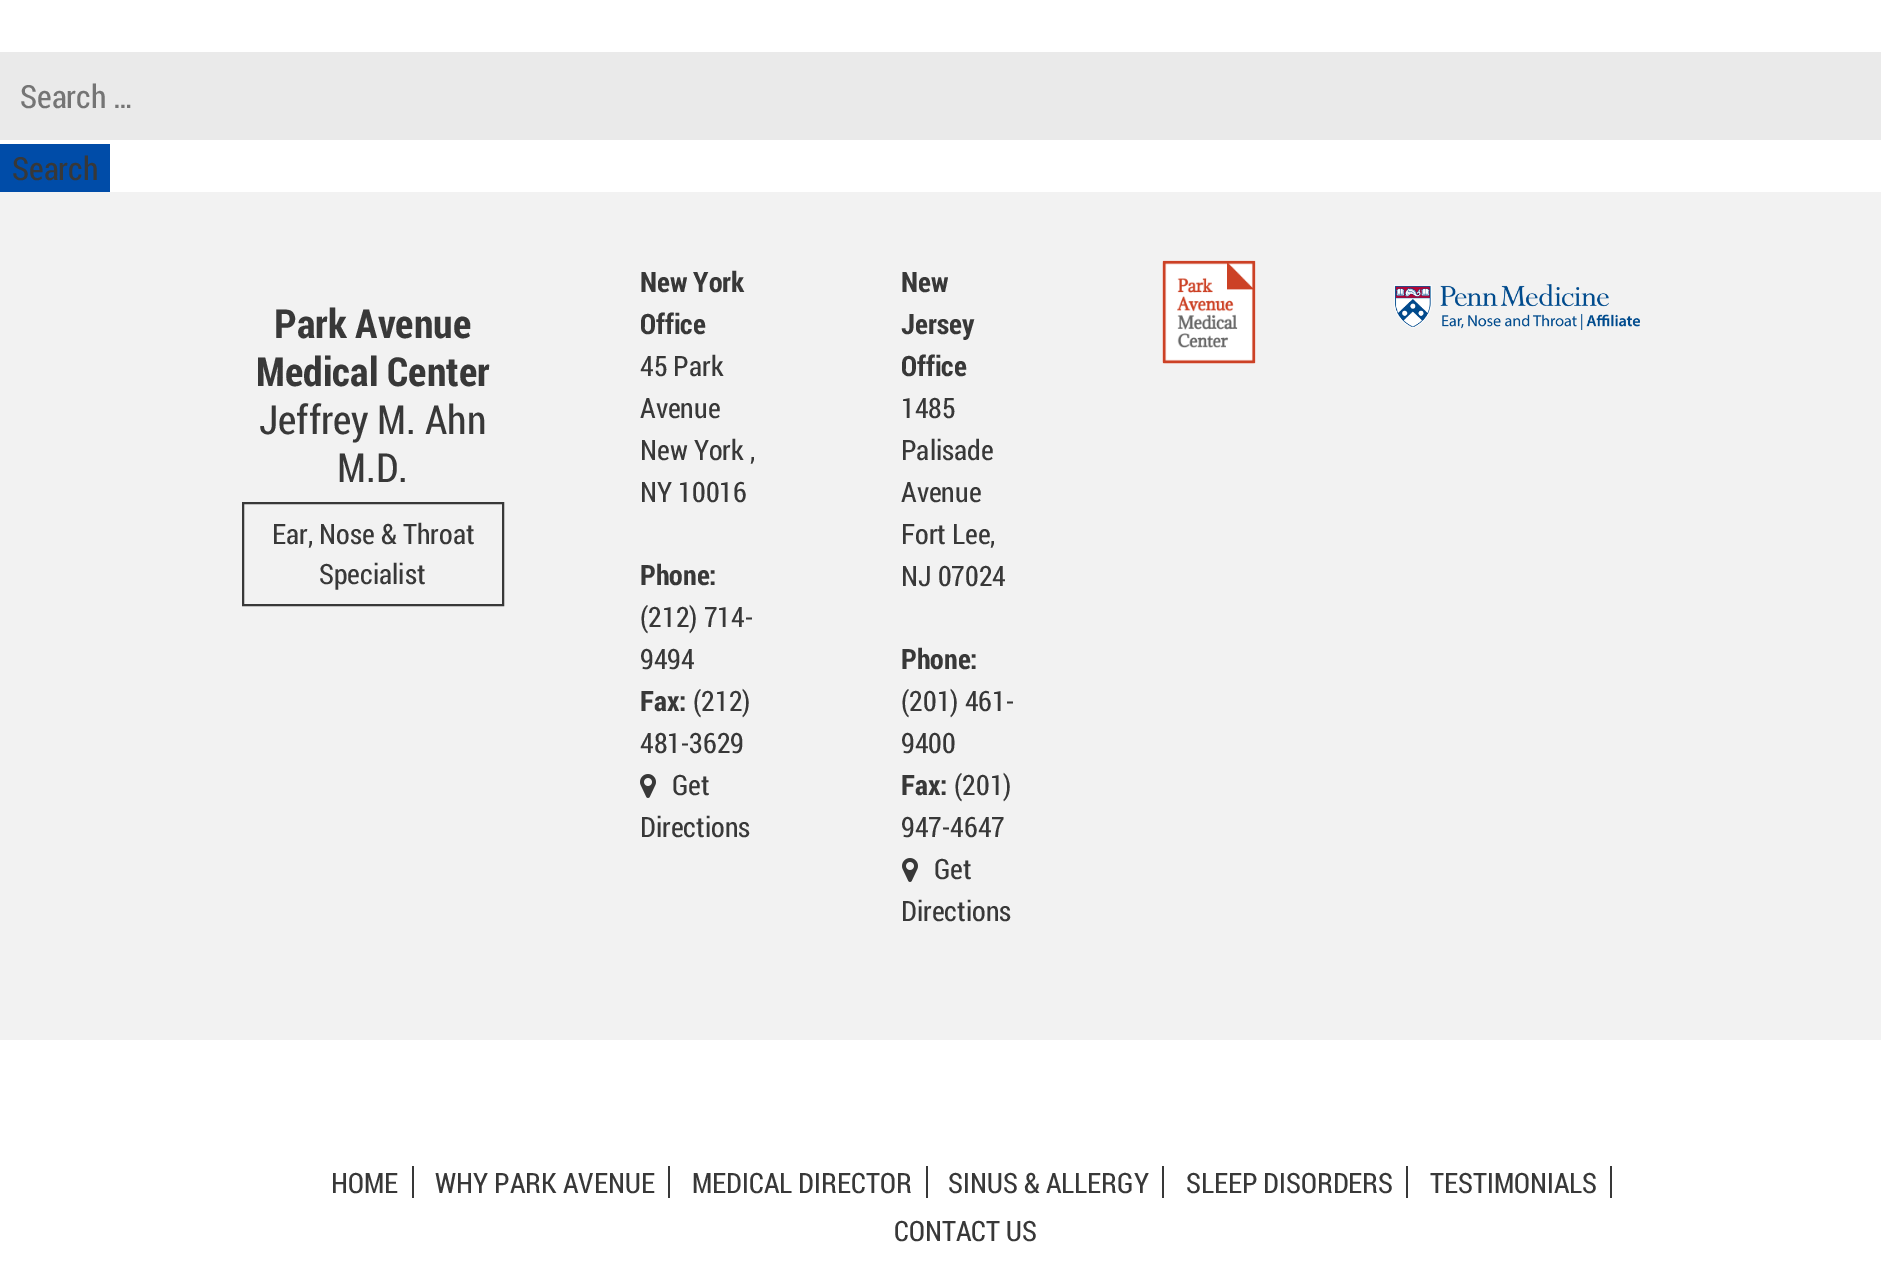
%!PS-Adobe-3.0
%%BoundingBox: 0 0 1881 1282
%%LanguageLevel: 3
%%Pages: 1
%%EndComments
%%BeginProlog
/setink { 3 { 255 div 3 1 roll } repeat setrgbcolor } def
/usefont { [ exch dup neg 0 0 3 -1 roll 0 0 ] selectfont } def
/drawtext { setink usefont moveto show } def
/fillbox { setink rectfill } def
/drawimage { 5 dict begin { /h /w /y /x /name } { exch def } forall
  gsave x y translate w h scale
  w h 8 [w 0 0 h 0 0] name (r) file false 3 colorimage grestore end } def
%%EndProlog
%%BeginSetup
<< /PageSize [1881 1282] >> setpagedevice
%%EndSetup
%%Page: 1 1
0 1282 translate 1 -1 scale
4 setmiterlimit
0 0 1881 1282 255 255 255 fillbox
0 52 1881 88 234 234 234 fillbox
(Search …) 20 108 /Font-Regular 32 117 117 117 drawtext
0 144 110 48 0 76 168 fillbox
(Search) 12 180 /Font-Regular 32 56 56 56 drawtext
0 192 1881 848 242 242 242 fillbox
(Park Avenue) 274 338 /Font-Bold 40 56 56 56 drawtext
(Medical Center) 256 386 /Font-Bold 40 56 56 56 drawtext
(Jeffrey M. Ahn) 259 434 /Font-Regular 40 56 56 56 drawtext
(M.D.) 337 482 /Font-Regular 40 56 56 56 drawtext
2 setlinewidth
243 503 260 102 rectstroke
(Ear, Nose & Throat) 272 544 /Font-Regular 28 56 56 56 drawtext
(Specialist) 319 584 /Font-Regular 28 56 56 56 drawtext
(New York) 640 292 /Font-Bold 28 56 56 56 drawtext
(Office) 640 334 /Font-Bold 28 56 56 56 drawtext
(45 Park) 640 376 /Font-Regular 28 56 56 56 drawtext
(Avenue) 640 418 /Font-Regular 28 56 56 56 drawtext
(New York ,) 640 460 /Font-Regular 28 56 56 56 drawtext
(NY 10016) 640 502 /Font-Regular 28 56 56 56 drawtext
(Phone:) 640 585 /Font-Bold 28 56 56 56 drawtext
(\(212\) 714-) 640 627 /Font-Regular 28 56 56 56 drawtext
(9494) 640 669 /Font-Regular 28 56 56 56 drawtext
(Fax:) 640 711 /Font-Bold 28 56 56 56 drawtext
(\(212\)) 693 711 /Font-Regular 28 56 56 56 drawtext
(481-3629) 640 753 /Font-Regular 28 56 56 56 drawtext
(assets/img1.rgb) 640 774 16 24 drawimage
(Get) 672 795 /Font-Regular 28 56 56 56 drawtext
(Directions) 640 837 /Font-Regular 28 56 56 56 drawtext
(New) 901 292 /Font-Bold 28 56 56 56 drawtext
(Jersey) 901 334 /Font-Bold 28 56 56 56 drawtext
(Office) 901 376 /Font-Bold 28 56 56 56 drawtext
(1485) 901 418 /Font-Regular 28 56 56 56 drawtext
(Palisade) 901 460 /Font-Regular 28 56 56 56 drawtext
(Avenue) 901 502 /Font-Regular 28 56 56 56 drawtext
(Fort Lee,) 901 544 /Font-Regular 28 56 56 56 drawtext
(NJ 07024) 901 586 /Font-Regular 28 56 56 56 drawtext
(Phone:) 901 669 /Font-Bold 28 56 56 56 drawtext
(\(201\) 461-) 901 711 /Font-Regular 28 56 56 56 drawtext
(9400) 901 753 /Font-Regular 28 56 56 56 drawtext
(Fax:) 901 795 /Font-Bold 28 56 56 56 drawtext
(\(201\)) 954 795 /Font-Regular 28 56 56 56 drawtext
(947-4647) 901 837 /Font-Regular 28 56 56 56 drawtext
(assets/img1.rgb) 902 858 16 24 drawimage
(Get) 934 879 /Font-Regular 28 56 56 56 drawtext
(Directions) 901 921 /Font-Regular 28 56 56 56 drawtext
(assets/img2.rgb) 1162 260 94 104 drawimage
(assets/img3.rgb) 1394 284 246 46 drawimage
412 1166 2 32 56 56 56 fillbox
(HOME) 331 1193 /Font-Regular 28 56 56 56 drawtext
668 1166 2 32 56 56 56 fillbox
(WHY PARK AVENUE) 435 1193 /Font-Regular 28 56 56 56 drawtext
926 1166 2 32 56 56 56 fillbox
(MEDICAL DIRECTOR) 692 1193 /Font-Regular 28 56 56 56 drawtext
1162 1166 2 32 56 56 56 fillbox
(SINUS & ALLERGY) 948 1193 /Font-Regular 28 56 56 56 drawtext
1406 1166 2 32 56 56 56 fillbox
(SLEEP DISORDERS) 1186 1193 /Font-Regular 28 56 56 56 drawtext
1610 1166 2 32 56 56 56 fillbox
(TESTIMONIALS) 1430 1193 /Font-Regular 28 56 56 56 drawtext
(CONTACT US) 894 1241 /Font-Regular 28 56 56 56 drawtext
showpage
%%EOF
